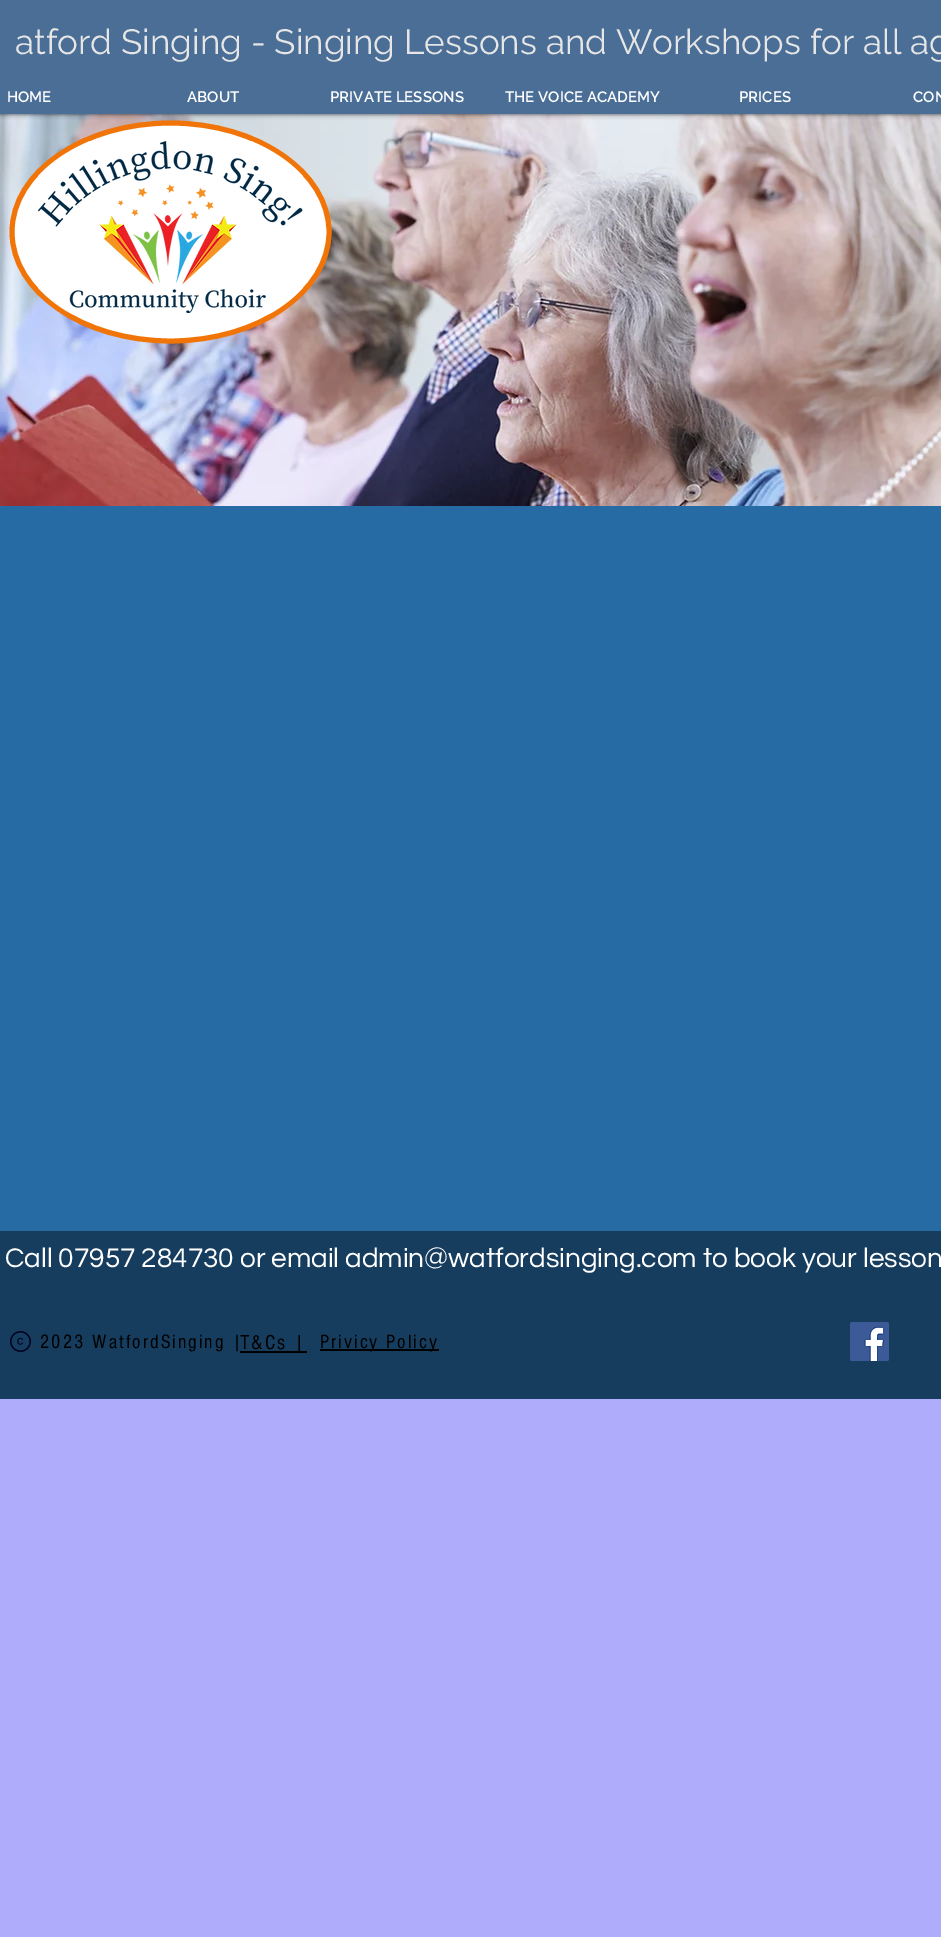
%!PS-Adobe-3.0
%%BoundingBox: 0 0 941 1937
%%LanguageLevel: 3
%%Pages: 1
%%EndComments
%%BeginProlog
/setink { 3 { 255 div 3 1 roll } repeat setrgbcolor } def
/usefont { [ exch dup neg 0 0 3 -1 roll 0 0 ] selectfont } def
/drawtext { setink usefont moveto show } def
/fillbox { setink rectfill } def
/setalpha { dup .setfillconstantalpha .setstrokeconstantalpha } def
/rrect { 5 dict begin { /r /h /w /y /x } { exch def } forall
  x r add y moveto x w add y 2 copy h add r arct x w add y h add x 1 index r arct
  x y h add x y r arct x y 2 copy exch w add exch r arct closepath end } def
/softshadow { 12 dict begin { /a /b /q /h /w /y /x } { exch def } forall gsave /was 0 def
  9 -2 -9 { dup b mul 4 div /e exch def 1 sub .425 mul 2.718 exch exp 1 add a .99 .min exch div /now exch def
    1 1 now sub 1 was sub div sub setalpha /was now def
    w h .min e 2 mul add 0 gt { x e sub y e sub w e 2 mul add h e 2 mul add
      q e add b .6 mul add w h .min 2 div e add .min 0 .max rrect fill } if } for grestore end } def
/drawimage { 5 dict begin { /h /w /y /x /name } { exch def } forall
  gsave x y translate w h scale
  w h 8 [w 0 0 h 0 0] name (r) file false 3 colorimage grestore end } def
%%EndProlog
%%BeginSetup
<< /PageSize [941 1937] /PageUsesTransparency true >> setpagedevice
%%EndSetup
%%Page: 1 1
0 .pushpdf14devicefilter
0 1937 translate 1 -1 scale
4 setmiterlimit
0 0 941 1937 175 172 251 fillbox
(assets/img1.rgb) 0 114 941 392 drawimage
255 255 255 setink
329 232 moveto 329 292 258 341 170 341 curveto 83 341 12 292 12 232 curveto 12 172 83 123 170 123 curveto 258 123 329 172 329 232 curveto closepath fill
240 116 7 setink
5 setlinewidth
329 232 moveto 329 292 258 341 170.5 341 curveto 83 341 12 292 12 232 curveto 12 172 83 123 170.5 123 curveto 258 123 329 172 329 232 curveto closepath stroke
0 0 0 setink
0 0 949 114 0 2.5 0.7 softshadow
0 0 941 114 74 110 150 fillbox
(atford Singing - Singing Lessons and Workshops for all ag) 15 54 /Raleway-Regular 35 230 230 230 drawtext
(HOME) 7 102 /Raleway-SemiBold 15 255 255 255 drawtext
(ABOUT) 187 102 /Raleway-SemiBold 15 255 255 255 drawtext
(PRIVATE LESSONS) 330 102 /Raleway-SemiBold 15 255 255 255 drawtext
(THE VOICE ACADEMY) 505 102 /Raleway-SemiBold 15 255 255 255 drawtext
(PRICES) 739 102 /Raleway-SemiBold 15 255 255 255 drawtext
(CON) 913 102 /Raleway-SemiBold 15 255 255 255 drawtext
(assets/img2.rgb) 38 141 265 172 drawimage
0 506 941 725 39 107 165 fillbox
0 1231 941 168 22 61 94 fillbox
(Call 07957 284730 or email admin@watfordsinging.com to book your lesson) 5 1267 /Questrial-Regular 28 255 255 255 drawtext
(assets/img3.rgb) 10 1331 21 21 drawimage
/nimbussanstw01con-Regular 20 usefont
0 0 0 setink
40 1348 moveto 2 0 (2023 WatfordSinging |) ashow
240 1351 67 2 0 0 0 fillbox
/nimbussanstw01con-Regular 21 usefont
240 1349 moveto 2 0 (T&Cs |) ashow
320 1349 119 2 0 0 0 fillbox
/nimbussanstw01con-Regular 20 usefont
320 1348 moveto 2 0 (Privicy Policy) ashow
(assets/img4.rgb) 850 1322 39 39 drawimage
.poppdf14devicefilter showpage
%%EOF
